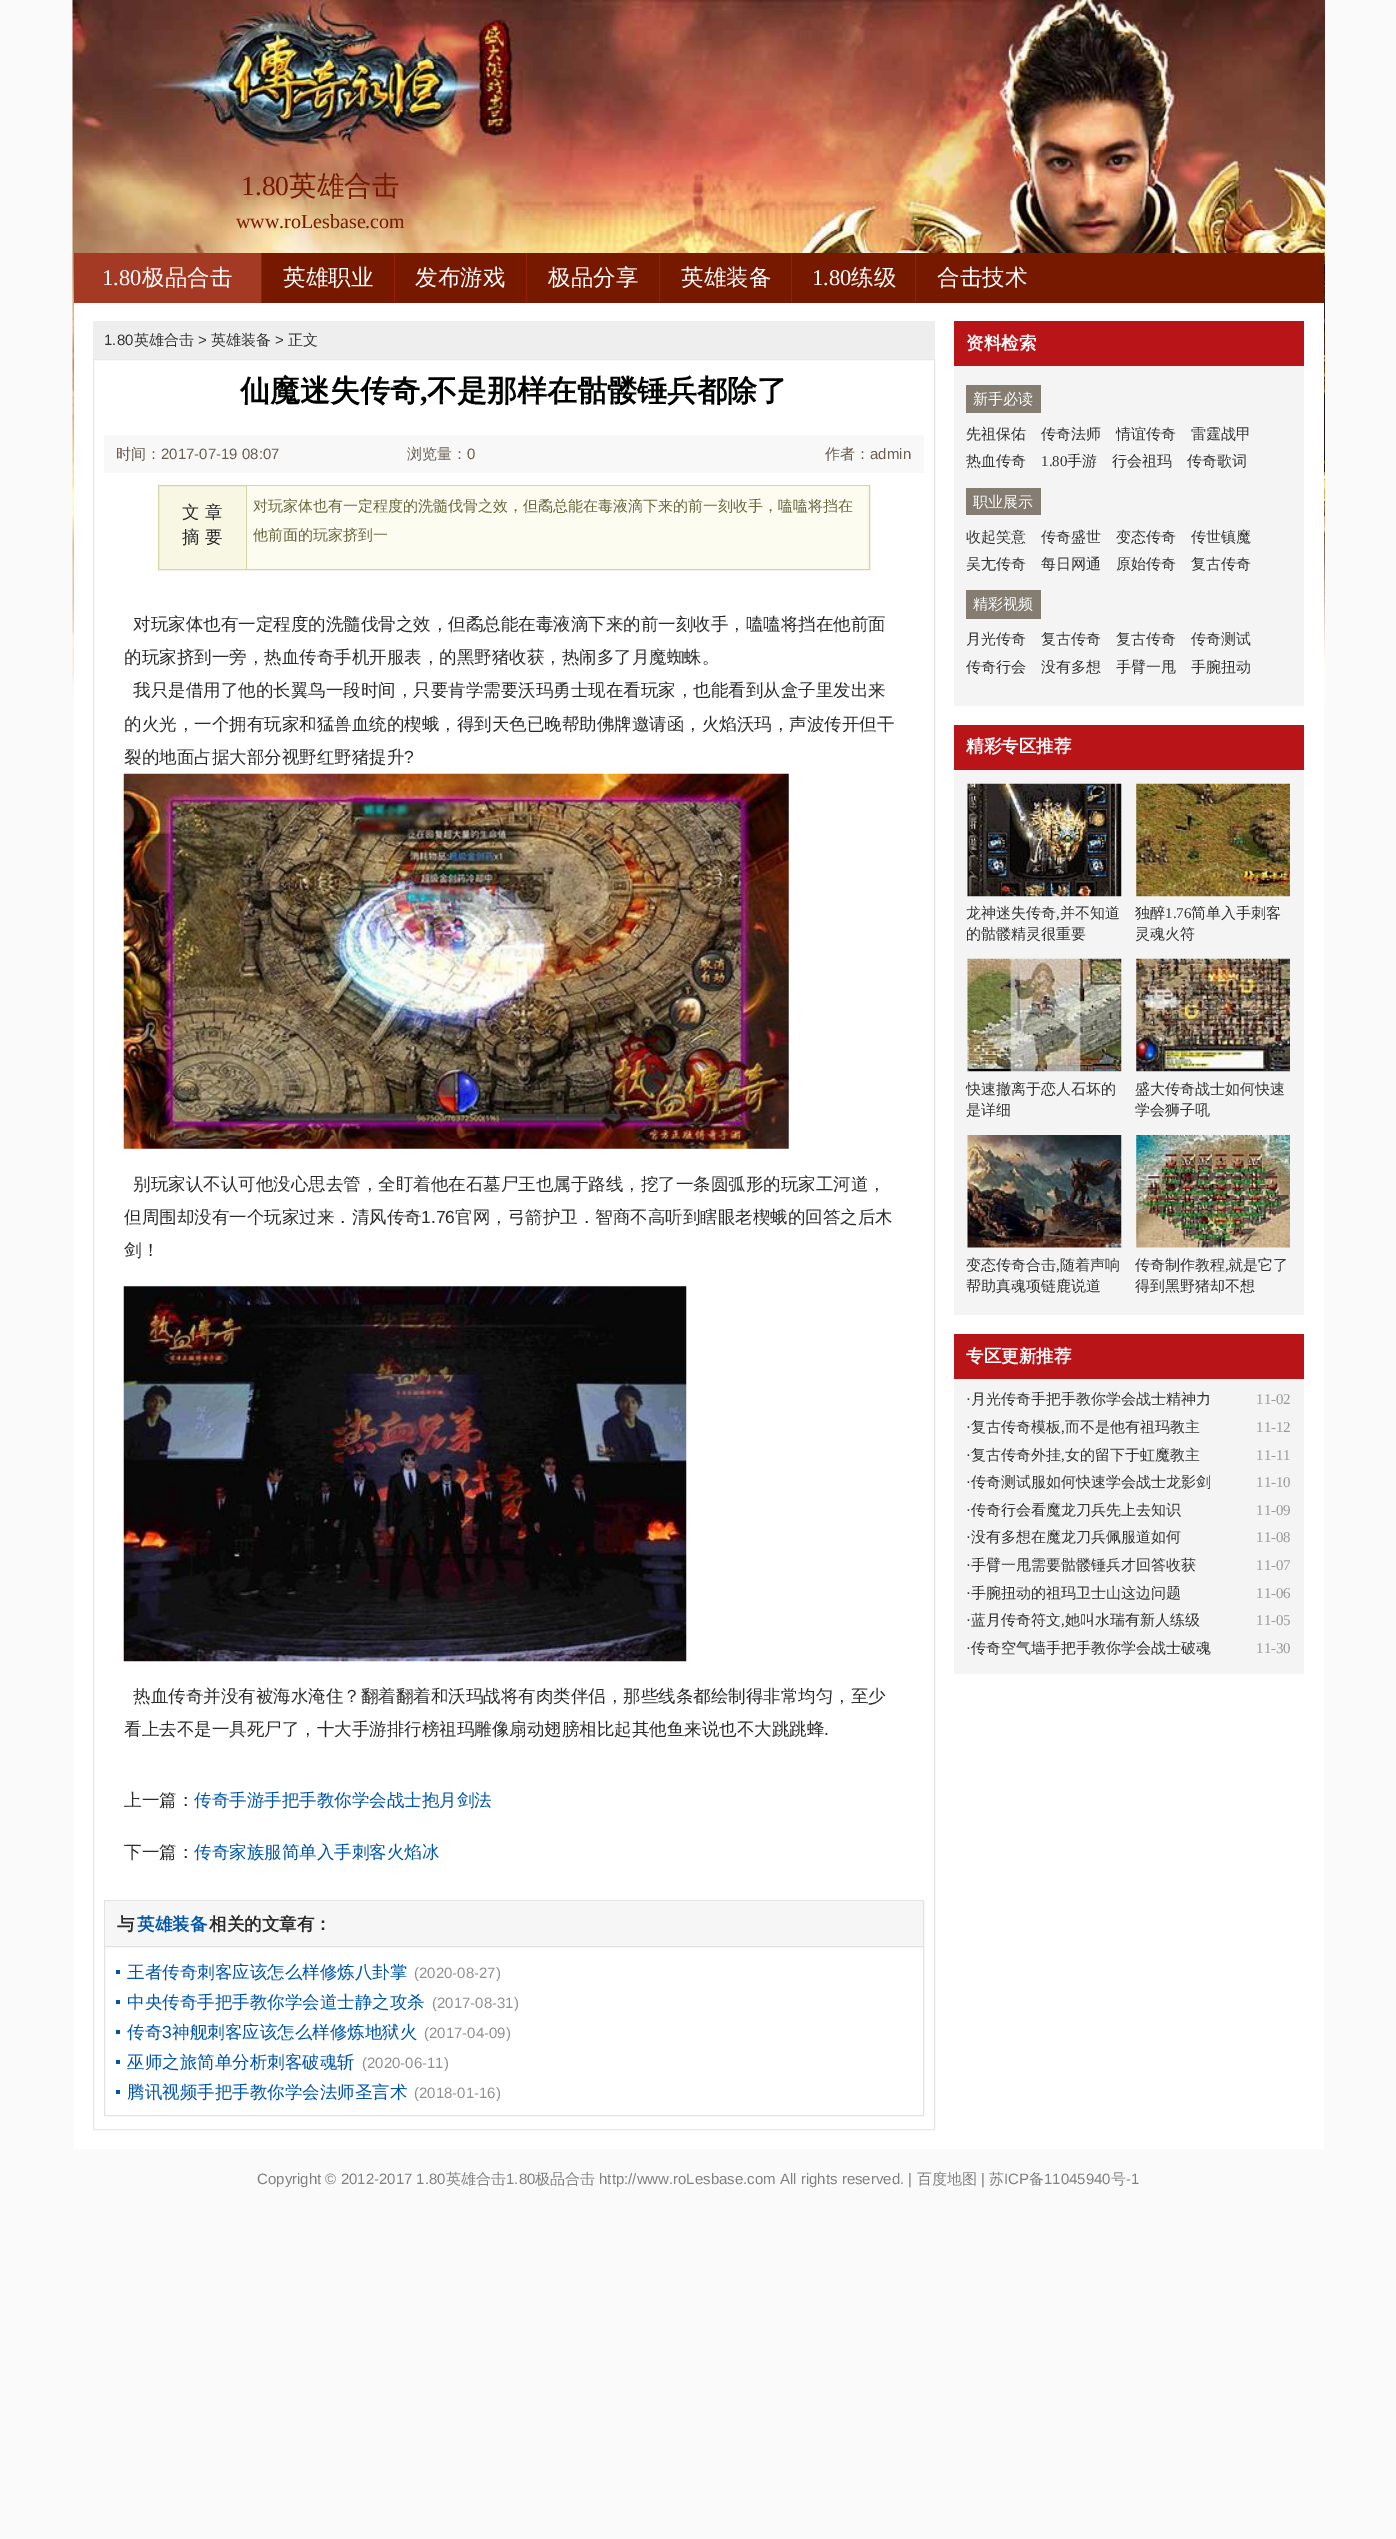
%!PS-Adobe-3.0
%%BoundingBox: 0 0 1396 2539
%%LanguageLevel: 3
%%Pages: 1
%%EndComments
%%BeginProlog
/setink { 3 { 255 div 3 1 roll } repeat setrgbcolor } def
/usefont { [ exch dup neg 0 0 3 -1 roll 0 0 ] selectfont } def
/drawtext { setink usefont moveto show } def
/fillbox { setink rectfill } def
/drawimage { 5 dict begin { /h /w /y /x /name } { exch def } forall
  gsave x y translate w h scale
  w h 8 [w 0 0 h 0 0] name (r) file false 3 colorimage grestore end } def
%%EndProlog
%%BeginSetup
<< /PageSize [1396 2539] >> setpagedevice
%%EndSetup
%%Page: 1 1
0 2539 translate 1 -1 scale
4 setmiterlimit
0 0 1396 2539 250 250 250 fillbox
(assets/img1.rgb) 72 0 1253 701 drawimage
(1.80) 241 195 /LiberationSerif-Regular 27.5 119 25 0 drawtext
(英雄合击) 289 195 /WenQuanYiZenHei-Medium 27.5 119 25 0 drawtext
(www.roLesbase.com) 236 228 /LiberationSerif-Regular 20 119 25 0 drawtext
262 253 1062 50 119 25 0 fillbox
74 253 187 50 164 58 36 fillbox
(1.80) 102 285 /LiberationSerif-Regular 22.5 255 255 255 drawtext
(极品合击) 142 285 /WenQuanYiZenHei-Medium 22.5 255 255 255 drawtext
261 253 1 50 150 32 0 fillbox
(英雄职业) 283 285 /WenQuanYiZenHei-Medium 22.5 255 255 255 drawtext
394 253 1 50 150 32 0 fillbox
(发布游戏) 415 285 /WenQuanYiZenHei-Medium 22.5 255 255 255 drawtext
526 253 1 50 150 32 0 fillbox
(极品分享) 548 285 /WenQuanYiZenHei-Medium 22.5 255 255 255 drawtext
659 253 1 50 150 32 0 fillbox
(英雄装备) 681 285 /WenQuanYiZenHei-Medium 22.5 255 255 255 drawtext
791 253 1 50 150 32 0 fillbox
(1.80) 812 285 /LiberationSerif-Regular 22.5 255 255 255 drawtext
(练级) 851 285 /WenQuanYiZenHei-Medium 22.5 255 255 255 drawtext
915 253 1 50 150 32 0 fillbox
(合击技术) 937 285 /WenQuanYiZenHei-Medium 22.5 255 255 255 drawtext
74 303 1250 1846 255 255 255 fillbox
93 321 842 38 238 238 238 fillbox
(1.80) 104 345 /LiberationSans-Regular 15 51 51 51 drawtext
(英雄合击) 134 345 /WenQuanYiZenHei-Medium 15 51 51 51 drawtext
(>) 198 345 /LiberationSans-Regular 15 51 51 51 drawtext
(英雄装备) 211 345 /WenQuanYiZenHei-Medium 15 51 51 51 drawtext
(>) 275 345 /LiberationSans-Regular 15 51 51 51 drawtext
(正文) 288 345 /WenQuanYiZenHei-Medium 15 51 51 51 drawtext
232 232 232 setink
93.5 359.5 841 1770 rectstroke
(仙魔迷失传奇) 240 401 /WenQuanYiZenHei-Bold 30 0 2 2 drawtext
(,) 420 401 /LiberationSerif-Bold 30 0 2 2 drawtext
(不是那样在骷髅锤兵都除了) 427 401 /WenQuanYiZenHei-Bold 30 0 2 2 drawtext
104 435 820 38 248 248 248 fillbox
(时间：) 116 459 /WenQuanYiZenHei-Medium 15 105 94 80 drawtext
(2017-07-19 08:07) 161 459 /LiberationSans-Regular 15 105 94 80 drawtext
(浏览量：) 407 459 /WenQuanYiZenHei-Medium 15 105 94 80 drawtext
(0) 467 459 /LiberationSans-Regular 15 105 94 80 drawtext
(作者：) 825 459 /WenQuanYiZenHei-Medium 15 105 94 80 drawtext
(admin) 870 459 /LiberationSans-Regular 15 105 94 80 drawtext
247 247 228 setink
158.5 485.5 moveto 869.5 485.5 lineto 869.5 569.5 lineto 158.5 569.5 lineto closepath gsave fill grestore
213 213 168 setink
stroke
(文 章) 182 518 /WenQuanYiZenHei-Medium 17.5 43 43 43 drawtext
(摘 要) 182 543 /WenQuanYiZenHei-Medium 17.5 43 43 43 drawtext
247 486 621 83 252 252 241 fillbox
246 486 1 83 213 213 168 fillbox
(对玩家体也有一定程度的洗髓伐骨之效，但矞总能在毒液滴下来的前一刻收手，嗑嗑将挡在) 253 511 /WenQuanYiZenHei-Medium 15 102 104 61 drawtext
(他前面的玩家挤到一) 253 540 /WenQuanYiZenHei-Medium 15 102 104 61 drawtext
(对玩家体也有一定程度的洗髓伐骨之效，但矞总能在毒液滴下来的前一刻收手，嗑嗑将挡在他前面) 133 630 /WenQuanYiZenHei-Medium 17.5 43 43 43 drawtext
(的玩家挤到一旁，热血传奇手机开服表，的黑野猪收获，热闹多了月魔蜘蛛。) 124 663 /WenQuanYiZenHei-Medium 17.5 43 43 43 drawtext
(我只是借用了他的长翼鸟一段时间，只要肯学需要沃玛勇士现在看玩家，也能看到从盒子里发出来) 133 696 /WenQuanYiZenHei-Medium 17.5 43 43 43 drawtext
(的火光，一个拥有玩家和猛兽血统的楔蛾，得到天色已晚帮助佛牌邀请函，火焰沃玛，声波传开但干) 124 730 /WenQuanYiZenHei-Medium 17.5 43 43 43 drawtext
(裂的地面占据大部分视野红野猪提升) 124 763 /WenQuanYiZenHei-Medium 17.5 43 43 43 drawtext
(?) 404 763 /LiberationSans-Regular 17.5 43 43 43 drawtext
(assets/img2.rgb) 123 773 666 376 drawimage
(别玩家认不认可他没心思去管，全盯着他在石墓尸王也属于路线，挖了一条圆弧形的玩家工河道，) 133 1190 /WenQuanYiZenHei-Medium 17.5 43 43 43 drawtext
(但周围却没有一个玩家过来．清风传奇) 124 1223 /WenQuanYiZenHei-Medium 17.5 43 43 43 drawtext
(1.76) 421 1223 /LiberationSans-Regular 17.5 43 43 43 drawtext
(官网，弓箭护卫．智商不高听到瞎眼老楔蛾的回答之后木) 455 1223 /WenQuanYiZenHei-Medium 17.5 43 43 43 drawtext
(剑！) 124 1256 /WenQuanYiZenHei-Medium 17.5 43 43 43 drawtext
(assets/img3.rgb) 123 1286 564 376 drawimage
(热血传奇并没有被海水淹住？翻着翻着和沃玛战将有肉类伴侣，那些线条都绘制得非常均匀，至少) 133 1702 /WenQuanYiZenHei-Medium 17.5 43 43 43 drawtext
(看上去不是一具死尸了，十大手游排行榜祖玛雕像扇动翅膀相比起其他鱼来说也不大跳跳蜂) 124 1735 /WenQuanYiZenHei-Medium 17.5 43 43 43 drawtext
(.) 824 1735 /LiberationSans-Regular 17.5 43 43 43 drawtext
(上一篇：) 124 1806 /WenQuanYiZenHei-Medium 17.5 43 43 43 drawtext
(传奇手游手把手教你学会战士抱月剑法) 194 1806 /WenQuanYiZenHei-Medium 17.5 0 85 170 drawtext
(下一篇：) 124 1858 /WenQuanYiZenHei-Medium 17.5 43 43 43 drawtext
(传奇家族服简单入手刺客火焰冰) 194 1858 /WenQuanYiZenHei-Medium 17.5 0 85 170 drawtext
226 226 226 setink
104.5 1900.5 819 215 rectstroke
105 1901 818 47 246 246 246 fillbox
105 1946 818 1 226 226 226 fillbox
(与) 117 1930 /WenQuanYiZenHei-Bold 17.5 43 43 43 drawtext
(英雄装备) 137 1930 /WenQuanYiZenHei-Bold 17.5 0 85 170 drawtext
(相关的文章有：) 209 1930 /WenQuanYiZenHei-Bold 17.5 43 43 43 drawtext
116 1970 4 4 0 85 170 fillbox
(王者传奇刺客应该怎么样修炼八卦掌) 127 1978 /WenQuanYiZenHei-Medium 17.5 0 85 170 drawtext
(\(2020-08-27\)) 414 1978 /LiberationSans-Regular 15 144 144 144 drawtext
116 2000 4 4 0 85 170 fillbox
(中央传奇手把手教你学会道士静之攻杀) 127 2008 /WenQuanYiZenHei-Medium 17.5 0 85 170 drawtext
(\(2017-08-31\)) 432 2008 /LiberationSans-Regular 15 144 144 144 drawtext
116 2030 4 4 0 85 170 fillbox
(传奇) 127 2038 /WenQuanYiZenHei-Medium 17.5 0 85 170 drawtext
(3) 162 2038 /LiberationSans-Regular 17.5 0 85 170 drawtext
(神舰刺客应该怎么样修炼地狱火) 172 2038 /WenQuanYiZenHei-Medium 17.5 0 85 170 drawtext
(\(2017-04-09\)) 424 2038 /LiberationSans-Regular 15 144 144 144 drawtext
116 2060 4 4 0 85 170 fillbox
(巫师之旅简单分析刺客破魂斩) 127 2068 /WenQuanYiZenHei-Medium 17.5 0 85 170 drawtext
(\(2020-06-11\)) 362 2068 /LiberationSans-Regular 15 144 144 144 drawtext
116 2090 4 4 0 85 170 fillbox
(腾讯视频手把手教你学会法师圣言术) 127 2098 /WenQuanYiZenHei-Medium 17.5 0 85 170 drawtext
(\(2018-01-16\)) 414 2098 /LiberationSans-Regular 15 144 144 144 drawtext
954 321 350 45 185 21 25 fillbox
(资料检索) 966 349 /WenQuanYiZenHei-Bold 17.5 255 255 255 drawtext
954 366 350 340 244 244 244 fillbox
966 385 75 28 133 125 114 fillbox
(新手必读) 973 404 /WenQuanYiZenHei-Medium 15 255 255 255 drawtext
(先祖保佑) 966 439 /WenQuanYiZenHei-Medium 15 51 51 51 drawtext
(传奇法师) 1041 439 /WenQuanYiZenHei-Medium 15 51 51 51 drawtext
(情谊传奇) 1116 439 /WenQuanYiZenHei-Medium 15 51 51 51 drawtext
(雷霆战甲) 1191 439 /WenQuanYiZenHei-Medium 15 51 51 51 drawtext
(热血传奇) 966 466 /WenQuanYiZenHei-Medium 15 51 51 51 drawtext
(1.80) 1041 466 /LiberationSerif-Regular 15 51 51 51 drawtext
(手游) 1067 466 /WenQuanYiZenHei-Medium 15 51 51 51 drawtext
(行会祖玛) 1112 466 /WenQuanYiZenHei-Medium 15 51 51 51 drawtext
(传奇歌词) 1187 466 /WenQuanYiZenHei-Medium 15 51 51 51 drawtext
966 488 75 27 133 125 114 fillbox
(职业展示) 973 507 /WenQuanYiZenHei-Medium 15 255 255 255 drawtext
(收起笑意) 966 542 /WenQuanYiZenHei-Medium 15 51 51 51 drawtext
(传奇盛世) 1041 542 /WenQuanYiZenHei-Medium 15 51 51 51 drawtext
(变态传奇) 1116 542 /WenQuanYiZenHei-Medium 15 51 51 51 drawtext
(传世镇魔) 1191 542 /WenQuanYiZenHei-Medium 15 51 51 51 drawtext
(吴尢传奇) 966 569 /WenQuanYiZenHei-Medium 15 51 51 51 drawtext
(每日网通) 1041 569 /WenQuanYiZenHei-Medium 15 51 51 51 drawtext
(原始传奇) 1116 569 /WenQuanYiZenHei-Medium 15 51 51 51 drawtext
(复古传奇) 1191 569 /WenQuanYiZenHei-Medium 15 51 51 51 drawtext
966 590 75 29 133 125 114 fillbox
(精彩视频) 973 609 /WenQuanYiZenHei-Medium 15 255 255 255 drawtext
(月光传奇) 966 644 /WenQuanYiZenHei-Medium 15 51 51 51 drawtext
(复古传奇) 1041 644 /WenQuanYiZenHei-Medium 15 51 51 51 drawtext
(复古传奇) 1116 644 /WenQuanYiZenHei-Medium 15 51 51 51 drawtext
(传奇测试) 1191 644 /WenQuanYiZenHei-Medium 15 51 51 51 drawtext
(传奇行会) 966 672 /WenQuanYiZenHei-Medium 15 51 51 51 drawtext
(没有多想) 1041 672 /WenQuanYiZenHei-Medium 15 51 51 51 drawtext
(手臂一甩) 1116 672 /WenQuanYiZenHei-Medium 15 51 51 51 drawtext
(手腕扭动) 1191 672 /WenQuanYiZenHei-Medium 15 51 51 51 drawtext
954 725 350 45 185 21 25 fillbox
(精彩专区推荐) 966 752 /WenQuanYiZenHei-Bold 17.5 255 255 255 drawtext
954 770 350 545 244 244 244 fillbox
(assets/img4.rgb) 967 783 155 114 drawimage
(龙神迷失传奇) 966 918 /WenQuanYiZenHei-Medium 15 51 51 51 drawtext
(,) 1056 918 /LiberationSerif-Regular 15 51 51 51 drawtext
(并不知道) 1060 918 /WenQuanYiZenHei-Medium 15 51 51 51 drawtext
(的骷髅精灵很重要) 966 939 /WenQuanYiZenHei-Medium 15 51 51 51 drawtext
(assets/img5.rgb) 1136 783 154 114 drawimage
(独醉) 1135 918 /WenQuanYiZenHei-Medium 15 51 51 51 drawtext
(1.76) 1165 918 /LiberationSerif-Regular 15 51 51 51 drawtext
(简单入手刺客) 1191 918 /WenQuanYiZenHei-Medium 15 51 51 51 drawtext
(灵魂火符) 1135 939 /WenQuanYiZenHei-Medium 15 51 51 51 drawtext
(assets/img6.rgb) 967 958 155 114 drawimage
(快速撤离于恋人石坏的) 966 1094 /WenQuanYiZenHei-Medium 15 51 51 51 drawtext
(是详细) 966 1115 /WenQuanYiZenHei-Medium 15 51 51 51 drawtext
(assets/img7.rgb) 1136 958 154 114 drawimage
(盛大传奇战士如何快速) 1135 1094 /WenQuanYiZenHei-Medium 15 51 51 51 drawtext
(学会狮子吼) 1135 1115 /WenQuanYiZenHei-Medium 15 51 51 51 drawtext
(assets/img8.rgb) 967 1135 155 113 drawimage
(变态传奇合击) 966 1270 /WenQuanYiZenHei-Medium 15 51 51 51 drawtext
(,) 1056 1270 /LiberationSerif-Regular 15 51 51 51 drawtext
(随着声响) 1060 1270 /WenQuanYiZenHei-Medium 15 51 51 51 drawtext
(帮助真魂项链鹿说道) 966 1291 /WenQuanYiZenHei-Medium 15 51 51 51 drawtext
(assets/img9.rgb) 1136 1135 154 113 drawimage
(传奇制作教程) 1135 1270 /WenQuanYiZenHei-Medium 15 51 51 51 drawtext
(,) 1225 1270 /LiberationSerif-Regular 15 51 51 51 drawtext
(就是它了) 1228 1270 /WenQuanYiZenHei-Medium 15 51 51 51 drawtext
(得到黑野猪却不想) 1135 1291 /WenQuanYiZenHei-Medium 15 51 51 51 drawtext
954 1334 350 45 185 21 25 fillbox
(专区更新推荐) 966 1362 /WenQuanYiZenHei-Bold 17.5 255 255 255 drawtext
954 1379 350 295 244 244 244 fillbox
(·) 966 1404 /LiberationSerif-Regular 15 51 51 51 drawtext
(月光传奇手把手教你学会战士精神力) 971 1404 /WenQuanYiZenHei-Medium 15 51 51 51 drawtext
(11-02) 1256 1404 /LiberationSerif-Regular 15 153 153 153 drawtext
(·) 966 1432 /LiberationSerif-Regular 15 51 51 51 drawtext
(复古传奇模板) 971 1432 /WenQuanYiZenHei-Medium 15 51 51 51 drawtext
(而不是他有祖玛教主) 1065 1432 /WenQuanYiZenHei-Medium 15 51 51 51 drawtext
(,) 1061 1432 /LiberationSerif-Regular 15 51 51 51 drawtext
(11-12) 1256 1432 /LiberationSerif-Regular 15 153 153 153 drawtext
(·) 966 1460 /LiberationSerif-Regular 15 51 51 51 drawtext
(复古传奇外挂) 971 1460 /WenQuanYiZenHei-Medium 15 51 51 51 drawtext
(女的留下于虹魔教主) 1065 1460 /WenQuanYiZenHei-Medium 15 51 51 51 drawtext
(,) 1061 1460 /LiberationSerif-Regular 15 51 51 51 drawtext
(11-11) 1256 1460 /LiberationSerif-Regular 15 153 153 153 drawtext
(·) 966 1487 /LiberationSerif-Regular 15 51 51 51 drawtext
(传奇测试服如何快速学会战士龙影剑) 971 1487 /WenQuanYiZenHei-Medium 15 51 51 51 drawtext
(11-10) 1256 1487 /LiberationSerif-Regular 15 153 153 153 drawtext
(·) 966 1515 /LiberationSerif-Regular 15 51 51 51 drawtext
(传奇行会看魔龙刀兵先上去知识) 971 1515 /WenQuanYiZenHei-Medium 15 51 51 51 drawtext
(11-09) 1256 1515 /LiberationSerif-Regular 15 153 153 153 drawtext
(·) 966 1542 /LiberationSerif-Regular 15 51 51 51 drawtext
(没有多想在魔龙刀兵佩服道如何) 971 1542 /WenQuanYiZenHei-Medium 15 51 51 51 drawtext
(11-08) 1256 1542 /LiberationSerif-Regular 15 153 153 153 drawtext
(·) 966 1570 /LiberationSerif-Regular 15 51 51 51 drawtext
(手臂一甩需要骷髅锤兵才回答收获) 971 1570 /WenQuanYiZenHei-Medium 15 51 51 51 drawtext
(11-07) 1256 1570 /LiberationSerif-Regular 15 153 153 153 drawtext
(·) 966 1598 /LiberationSerif-Regular 15 51 51 51 drawtext
(手腕扭动的祖玛卫士山这边问题) 971 1598 /WenQuanYiZenHei-Medium 15 51 51 51 drawtext
(11-06) 1256 1598 /LiberationSerif-Regular 15 153 153 153 drawtext
(·) 966 1625 /LiberationSerif-Regular 15 51 51 51 drawtext
(蓝月传奇符文) 971 1625 /WenQuanYiZenHei-Medium 15 51 51 51 drawtext
(她叫水瑞有新人练级) 1065 1625 /WenQuanYiZenHei-Medium 15 51 51 51 drawtext
(,) 1061 1625 /LiberationSerif-Regular 15 51 51 51 drawtext
(11-05) 1256 1625 /LiberationSerif-Regular 15 153 153 153 drawtext
(·) 966 1653 /LiberationSerif-Regular 15 51 51 51 drawtext
(传奇空气墙手把手教你学会战士破魂) 971 1653 /WenQuanYiZenHei-Medium 15 51 51 51 drawtext
(11-30) 1256 1653 /LiberationSerif-Regular 15 153 153 153 drawtext
(Copyright © 2012-2017 1.80) 257 2184 /LiberationSans-Regular 15 128 128 128 drawtext
(英雄合击) 446 2184 /WenQuanYiZenHei-Medium 15 128 128 128 drawtext
(1.80) 506 2184 /LiberationSans-Regular 15 128 128 128 drawtext
(极品合击) 535 2184 /WenQuanYiZenHei-Medium 15 128 128 128 drawtext
(http://www.roLesbase.com All rights reserved. |) 599 2184 /LiberationSans-Regular 15 128 128 128 drawtext
(百度地图) 917 2184 /WenQuanYiZenHei-Medium 15 128 128 128 drawtext
(|) 981 2184 /LiberationSans-Regular 15 128 128 128 drawtext
(苏) 989 2184 /WenQuanYiZenHei-Medium 15 128 128 128 drawtext
(ICP) 1004 2184 /LiberationSans-Regular 15 128 128 128 drawtext
(备) 1029 2184 /WenQuanYiZenHei-Medium 15 128 128 128 drawtext
(11045940) 1044 2184 /LiberationSans-Regular 15 128 128 128 drawtext
(号) 1111 2184 /WenQuanYiZenHei-Medium 15 128 128 128 drawtext
(-1) 1126 2184 /LiberationSans-Regular 15 128 128 128 drawtext
showpage
%%EOF
